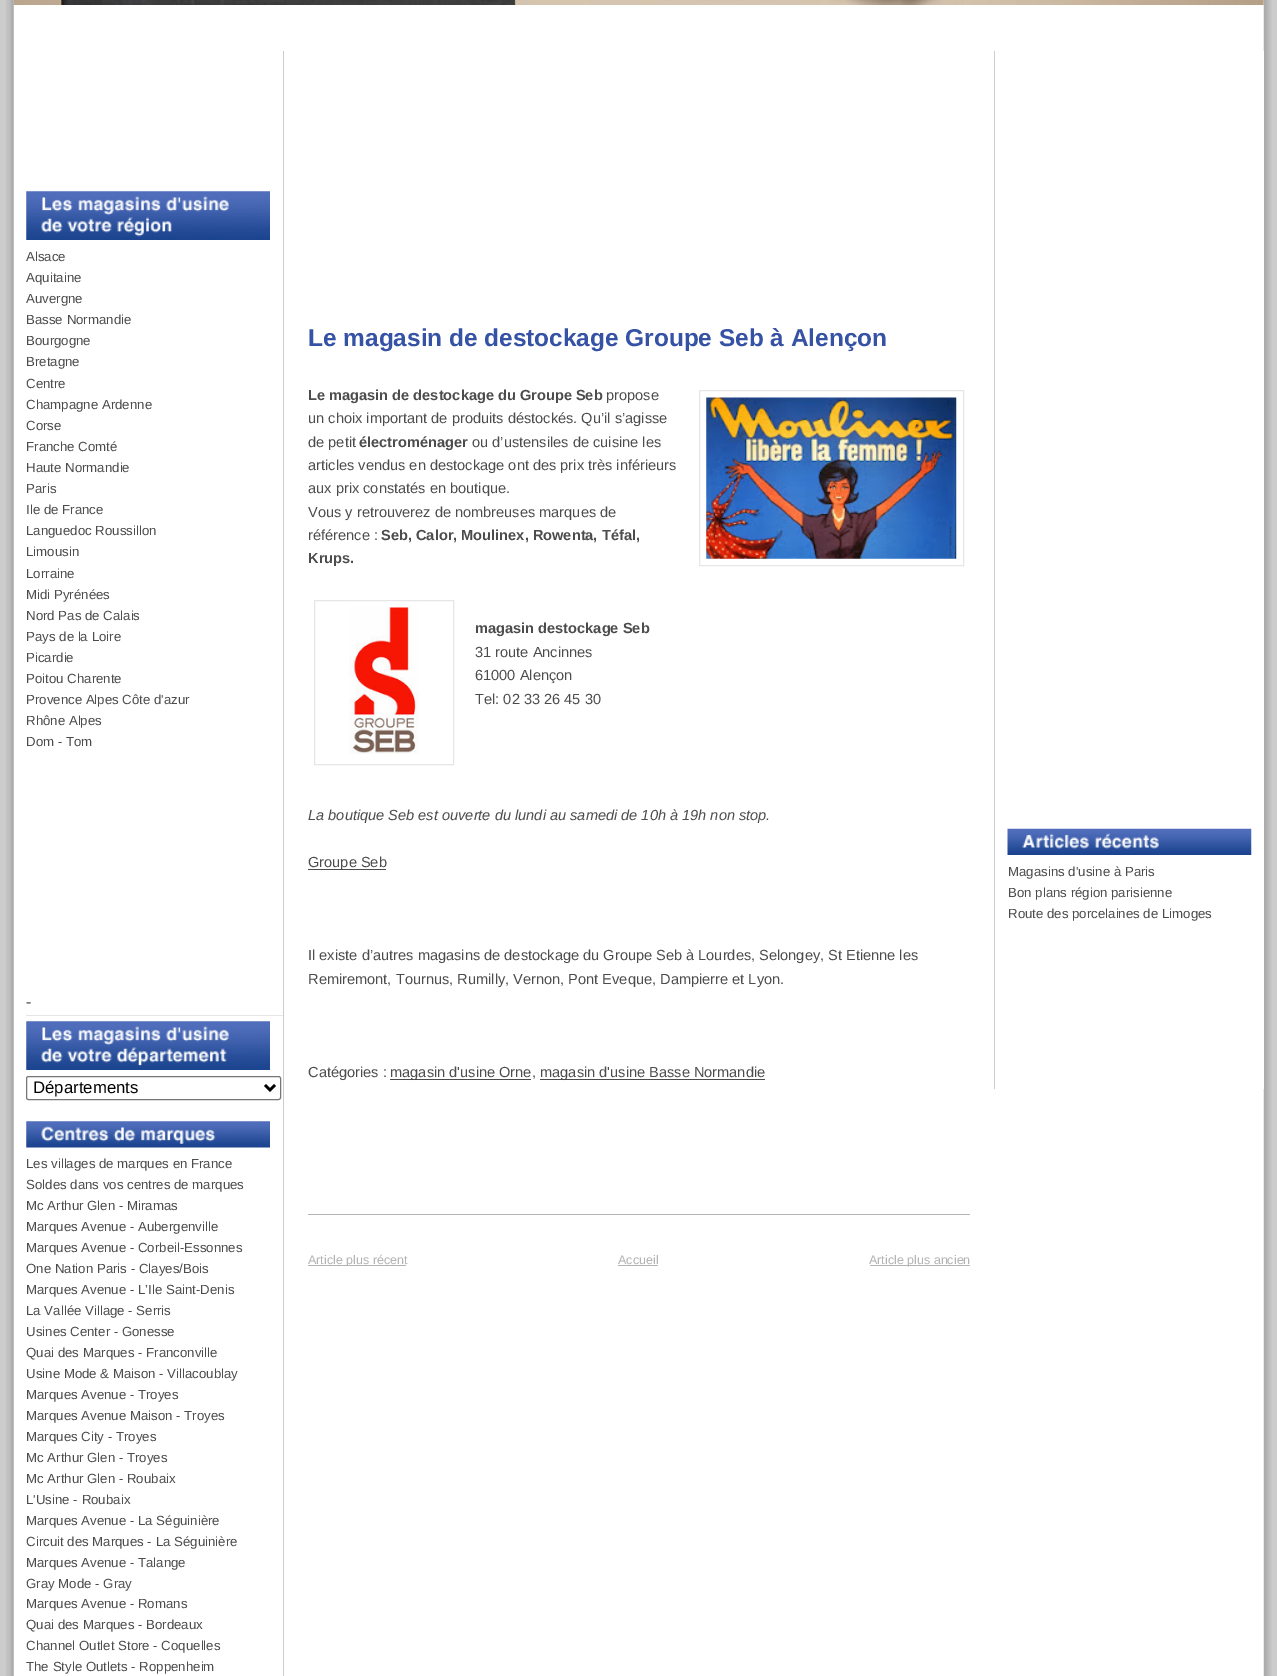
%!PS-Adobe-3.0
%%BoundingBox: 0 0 1277 1676
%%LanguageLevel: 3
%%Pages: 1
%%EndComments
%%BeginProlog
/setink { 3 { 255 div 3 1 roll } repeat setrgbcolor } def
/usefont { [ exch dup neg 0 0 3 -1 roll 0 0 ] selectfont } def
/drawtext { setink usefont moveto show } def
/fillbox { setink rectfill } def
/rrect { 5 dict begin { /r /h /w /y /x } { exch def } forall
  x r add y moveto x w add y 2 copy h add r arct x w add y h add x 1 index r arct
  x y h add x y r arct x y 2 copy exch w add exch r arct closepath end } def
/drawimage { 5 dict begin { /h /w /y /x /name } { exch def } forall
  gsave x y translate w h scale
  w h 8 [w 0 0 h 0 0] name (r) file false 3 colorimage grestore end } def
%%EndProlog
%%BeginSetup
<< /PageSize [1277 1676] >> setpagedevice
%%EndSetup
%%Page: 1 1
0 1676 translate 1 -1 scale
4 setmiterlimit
0 0 1277 1676 204 204 204 fillbox
(assets/img1.rgb) 6 0 1266 1676 drawimage
(assets/img2.rgb) 13 0 1251 5 drawimage
283 51 1 1625 204 204 204 fillbox
(assets/img3.rgb) 26 191 244 49 drawimage
(Alsace) 26 261 /LiberationSans-Regular 13.25 76 76 76 drawtext
(Aquitaine) 26 282 /LiberationSans-Regular 13.25 76 76 76 drawtext
(Auvergne) 26 303 /LiberationSans-Regular 13.25 76 76 76 drawtext
(Basse Normandie) 26 324 /LiberationSans-Regular 13.25 76 76 76 drawtext
(Bourgogne) 26 345 /LiberationSans-Regular 13.25 76 76 76 drawtext
(Bretagne) 26 366 /LiberationSans-Regular 13.25 76 76 76 drawtext
(Centre) 26 388 /LiberationSans-Regular 13.25 76 76 76 drawtext
(Champagne Ardenne) 26 409 /LiberationSans-Regular 13.25 76 76 76 drawtext
(Corse) 26 430 /LiberationSans-Regular 13.25 76 76 76 drawtext
(Franche Comté) 26 451 /LiberationSans-Regular 13.25 76 76 76 drawtext
(Haute Normandie) 26 472 /LiberationSans-Regular 13.25 76 76 76 drawtext
(Paris) 26 493 /LiberationSans-Regular 13.25 76 76 76 drawtext
(Ile de France) 26 514 /LiberationSans-Regular 13.25 76 76 76 drawtext
(Languedoc Roussillon) 26 535 /LiberationSans-Regular 13.25 76 76 76 drawtext
(Limousin) 26 556 /LiberationSans-Regular 13.25 76 76 76 drawtext
(Lorraine) 26 578 /LiberationSans-Regular 13.25 76 76 76 drawtext
(Midi Pyrénées) 26 599 /LiberationSans-Regular 13.25 76 76 76 drawtext
(Nord Pas de Calais) 26 620 /LiberationSans-Regular 13.25 76 76 76 drawtext
(Pays de la Loire) 26 641 /LiberationSans-Regular 13.25 76 76 76 drawtext
(Picardie) 26 662 /LiberationSans-Regular 13.25 76 76 76 drawtext
(Poitou Charente) 26 683 /LiberationSans-Regular 13.25 76 76 76 drawtext
(Provence Alpes Côte d'azur) 26 704 /LiberationSans-Regular 13.25 76 76 76 drawtext
(Rhône Alpes) 26 725 /LiberationSans-Regular 13.25 76 76 76 drawtext
(Dom - Tom) 26 746 /LiberationSans-Regular 13.25 76 76 76 drawtext
26 1015 257 1 230 230 230 fillbox
(-) 26 1007 /LiberationSans-Bold 16 128 128 128 drawtext
(assets/img4.rgb) 26 1021 244 49 drawimage
118 118 118 setink
26.5 1076.5 254 23 2 rrect stroke
0 0 0 setink
2.5 setlinewidth
265 1085 moveto 270 1090 lineto 275 1085 lineto stroke
(Départements) 33 1093 /LiberationSans-Regular 16.75 0 0 0 drawtext
(assets/img5.rgb) 26 1121 244 27 drawimage
(Les villages de marques en France) 26 1168 /LiberationSans-Regular 13.25 76 76 76 drawtext
(Soldes dans vos centres de marques) 26 1189 /LiberationSans-Regular 13.25 76 76 76 drawtext
(Mc Arthur Glen - Miramas) 26 1210 /LiberationSans-Regular 13.25 76 76 76 drawtext
(Marques Avenue - Aubergenville) 26 1231 /LiberationSans-Regular 13.25 76 76 76 drawtext
(Marques Avenue - Corbeil-Essonnes) 26 1252 /LiberationSans-Regular 13.25 76 76 76 drawtext
(One Nation Paris - Clayes/Bois) 26 1273 /LiberationSans-Regular 13.25 76 76 76 drawtext
(Marques Avenue - L’Ile Saint-Denis) 26 1294 /LiberationSans-Regular 13.25 76 76 76 drawtext
(La Vallée Village - Serris) 26 1315 /LiberationSans-Regular 13.25 76 76 76 drawtext
(Usines Center - Gonesse) 26 1336 /LiberationSans-Regular 13.25 76 76 76 drawtext
(Quai des Marques - Franconville) 26 1357 /LiberationSans-Regular 13.25 76 76 76 drawtext
(Usine Mode & Maison - Villacoublay) 26 1378 /LiberationSans-Regular 13.25 76 76 76 drawtext
(Marques Avenue - Troyes) 26 1399 /LiberationSans-Regular 13.25 76 76 76 drawtext
(Marques Avenue Maison - Troyes) 26 1420 /LiberationSans-Regular 13.25 76 76 76 drawtext
(Marques City - Troyes) 26 1441 /LiberationSans-Regular 13.25 76 76 76 drawtext
(Mc Arthur Glen - Troyes) 26 1462 /LiberationSans-Regular 13.25 76 76 76 drawtext
(Mc Arthur Glen - Roubaix) 26 1483 /LiberationSans-Regular 13.25 76 76 76 drawtext
(L'Usine - Roubaix) 26 1504 /LiberationSans-Regular 13.25 76 76 76 drawtext
(Marques Avenue - La Séguinière) 26 1525 /LiberationSans-Regular 13.25 76 76 76 drawtext
(Circuit des Marques - La Séguinière) 26 1546 /LiberationSans-Regular 13.25 76 76 76 drawtext
(Marques Avenue - Talange) 26 1567 /LiberationSans-Regular 13.25 76 76 76 drawtext
(Gray Mode - Gray) 26 1588 /LiberationSans-Regular 13.25 76 76 76 drawtext
(Marques Avenue - Romans) 26 1608 /LiberationSans-Regular 13.25 76 76 76 drawtext
(Quai des Marques - Bordeaux) 26 1629 /LiberationSans-Regular 13.25 76 76 76 drawtext
(Channel Outlet Store - Coquelles) 26 1650 /LiberationSans-Regular 13.25 76 76 76 drawtext
(The Style Outlets - Roppenheim) 26 1671 /LiberationSans-Regular 13.25 76 76 76 drawtext
(Le magasin de destockage Groupe Seb à Alençon) 308 346 /LiberationSans-Bold 24.4 53 82 165 drawtext
(Le magasin de destockage du Groupe Seb) 308 400 /LiberationSans-Bold 14.6 76 76 76 drawtext
(propose) 606 400 /LiberationSans-Regular 14.6 76 76 76 drawtext
230 230 230 setink
1 setlinewidth
699.5 390.5 264 175 rectstroke
(assets/img6.rgb) 706 397 251 162 drawimage
(un choix important de produits déstockés. Qu’il s’agisse) 308 423 /LiberationSans-Regular 14.6 76 76 76 drawtext
(de petit) 308 447 /LiberationSans-Regular 14.6 76 76 76 drawtext
(électroménager) 359 447 /LiberationSans-Bold 14.6 76 76 76 drawtext
(ou d’ustensiles de cuisine les) 472 447 /LiberationSans-Regular 14.6 76 76 76 drawtext
(articles vendus en destockage ont des prix très inférieurs) 308 470 /LiberationSans-Regular 14.6 76 76 76 drawtext
(aux prix constatés en boutique.) 308 493 /LiberationSans-Regular 14.6 76 76 76 drawtext
(Vous y retrouverez de nombreuses marques de) 308 517 /LiberationSans-Regular 14.6 76 76 76 drawtext
(référence :) 308 540 /LiberationSans-Regular 14.6 76 76 76 drawtext
(Seb, Calor, Moulinex, Rowenta, Téfal,) 381 540 /LiberationSans-Bold 14.6 76 76 76 drawtext
(Krups.) 308 563 /LiberationSans-Bold 14.6 76 76 76 drawtext
230 230 230 setink
314.5 600.5 139 164 rectstroke
(assets/img7.rgb) 349 607 70 147 drawimage
(magasin destockage Seb) 475 633 /LiberationSans-Bold 14.6 76 76 76 drawtext
(31 route Ancinnes) 475 657 /LiberationSans-Regular 14.6 76 76 76 drawtext
(61000 Alençon) 475 680 /LiberationSans-Regular 14.6 76 76 76 drawtext
(Tel: 02 33 26 45 30) 475 704 /LiberationSans-Regular 14.6 76 76 76 drawtext
(La boutique Seb est ouverte du lundi au samedi de 10h à 19h non stop.) 308 820 /LiberationSans-Italic 14.6 76 76 76 drawtext
308 869 78 1 76 76 76 fillbox
(Groupe Seb) 308 867 /LiberationSans-Regular 14.6 76 76 76 drawtext
(Il existe d’autres magasins de destockage du Groupe Seb à Lourdes, Selongey, St Etienne les) 308 960 /LiberationSans-Regular 14.6 76 76 76 drawtext
(Remiremont, Tournus, Rumilly, Vernon, Pont Eveque, Dampierre et Lyon.) 308 984 /LiberationSans-Regular 14.6 76 76 76 drawtext
(Catégories :) 308 1077 /LiberationSans-Regular 14.6 76 76 76 drawtext
390 1079 141 1 76 76 76 fillbox
(magasin d'usine Orne,) 390 1077 /LiberationSans-Regular 14.6 76 76 76 drawtext
540 1079 225 1 76 76 76 fillbox
(magasin d'usine Basse Normandie) 540 1077 /LiberationSans-Regular 14.6 76 76 76 drawtext
308 1214 662 1 179 179 179 fillbox
308 1265 98 1 179 179 179 fillbox
gsave
308 1253 662 13 rectclip
(Article plus récent) 308 1264 /LiberationSans-Regular 12.5 179 179 179 drawtext
grestore
(Accueil) 618 1264 /LiberationSans-Regular 12.5 179 179 179 drawtext
618 1265 40 1 179 179 179 fillbox
870 1265 100 1 179 179 179 fillbox
(Article plus ancien) 869 1264 /LiberationSans-Regular 12.5 179 179 179 drawtext
1263 51 1 1038 255 255 255 fillbox
994 51 1 1038 204 204 204 fillbox
(assets/img8.rgb) 1007 828 245 27 drawimage
(Magasins d'usine à Paris) 1008 876 /LiberationSans-Regular 13.25 76 76 76 drawtext
(Bon plans région parisienne) 1008 897 /LiberationSans-Regular 13.25 76 76 76 drawtext
(Route des porcelaines de Limoges) 1008 918 /LiberationSans-Regular 13.25 76 76 76 drawtext
showpage
%%EOF
